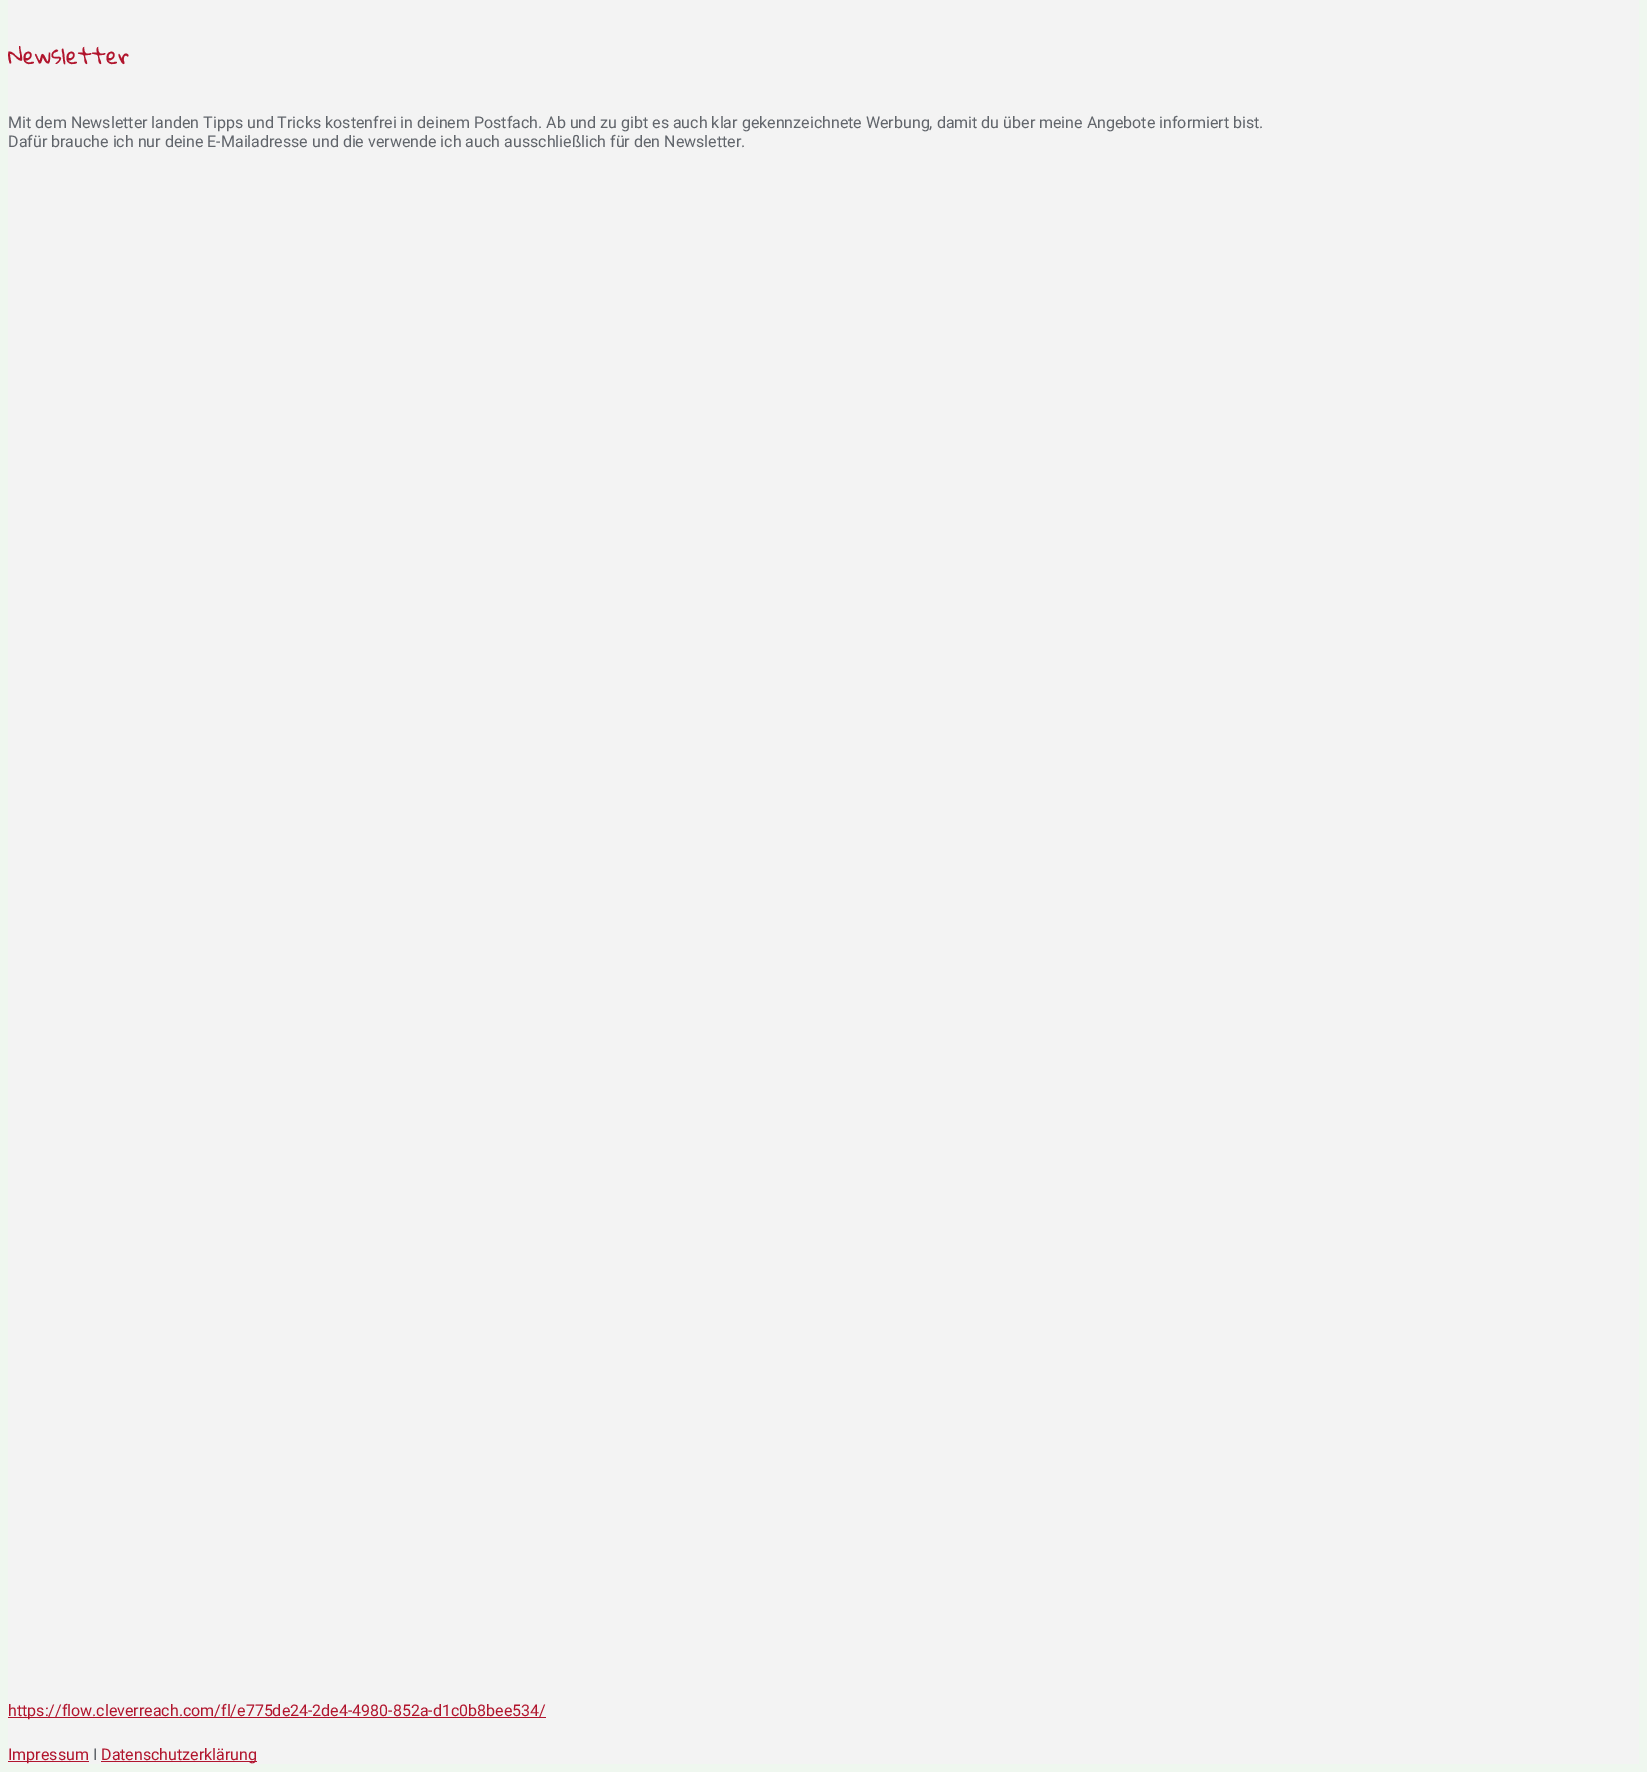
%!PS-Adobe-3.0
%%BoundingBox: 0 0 1647 1772
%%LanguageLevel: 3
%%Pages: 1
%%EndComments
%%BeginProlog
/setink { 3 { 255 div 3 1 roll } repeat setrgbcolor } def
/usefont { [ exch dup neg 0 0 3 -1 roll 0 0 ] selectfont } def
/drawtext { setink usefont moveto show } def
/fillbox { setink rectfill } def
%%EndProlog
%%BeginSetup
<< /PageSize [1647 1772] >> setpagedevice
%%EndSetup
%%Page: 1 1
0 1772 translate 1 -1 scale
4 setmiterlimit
0 0 1647 1772 239 247 239 fillbox
8 0 1631 1764 243 243 243 fillbox
(Newsletter) 8 64 /GloriaHallelujah-Regular 22 177 21 45 drawtext
(Mit dem Newsletter landen Tipps und Tricks kostenfrei in deinem Postfach. Ab und zu gibt es auch klar gekennzeichnete Werbung, damit du über meine Angebote informiert bist.) 8 128 /Roboto-Regular 16 97 101 107 drawtext
(Dafür brauche ich nur deine E-Mailadresse und die verwende ich auch ausschließlich für den Newsletter.) 8 147 /Roboto-Regular 16 97 101 107 drawtext
8 1717 538 1 177 21 45 fillbox
(https://flow.cleverreach.com/fl/e775de24-2de4-4980-852a-d1c0b8bee534/) 8 1716 /Roboto-Regular 16 177 21 45 drawtext
8 1761 81 1 177 21 45 fillbox
(Impressum) 8 1760 /Roboto-Regular 16 177 21 45 drawtext
(I) 93 1760 /Roboto-Regular 16 97 101 107 drawtext
101 1761 156 1 177 21 45 fillbox
(Datenschutzerklärung) 101 1760 /Roboto-Regular 16 177 21 45 drawtext
showpage
%%EOF
